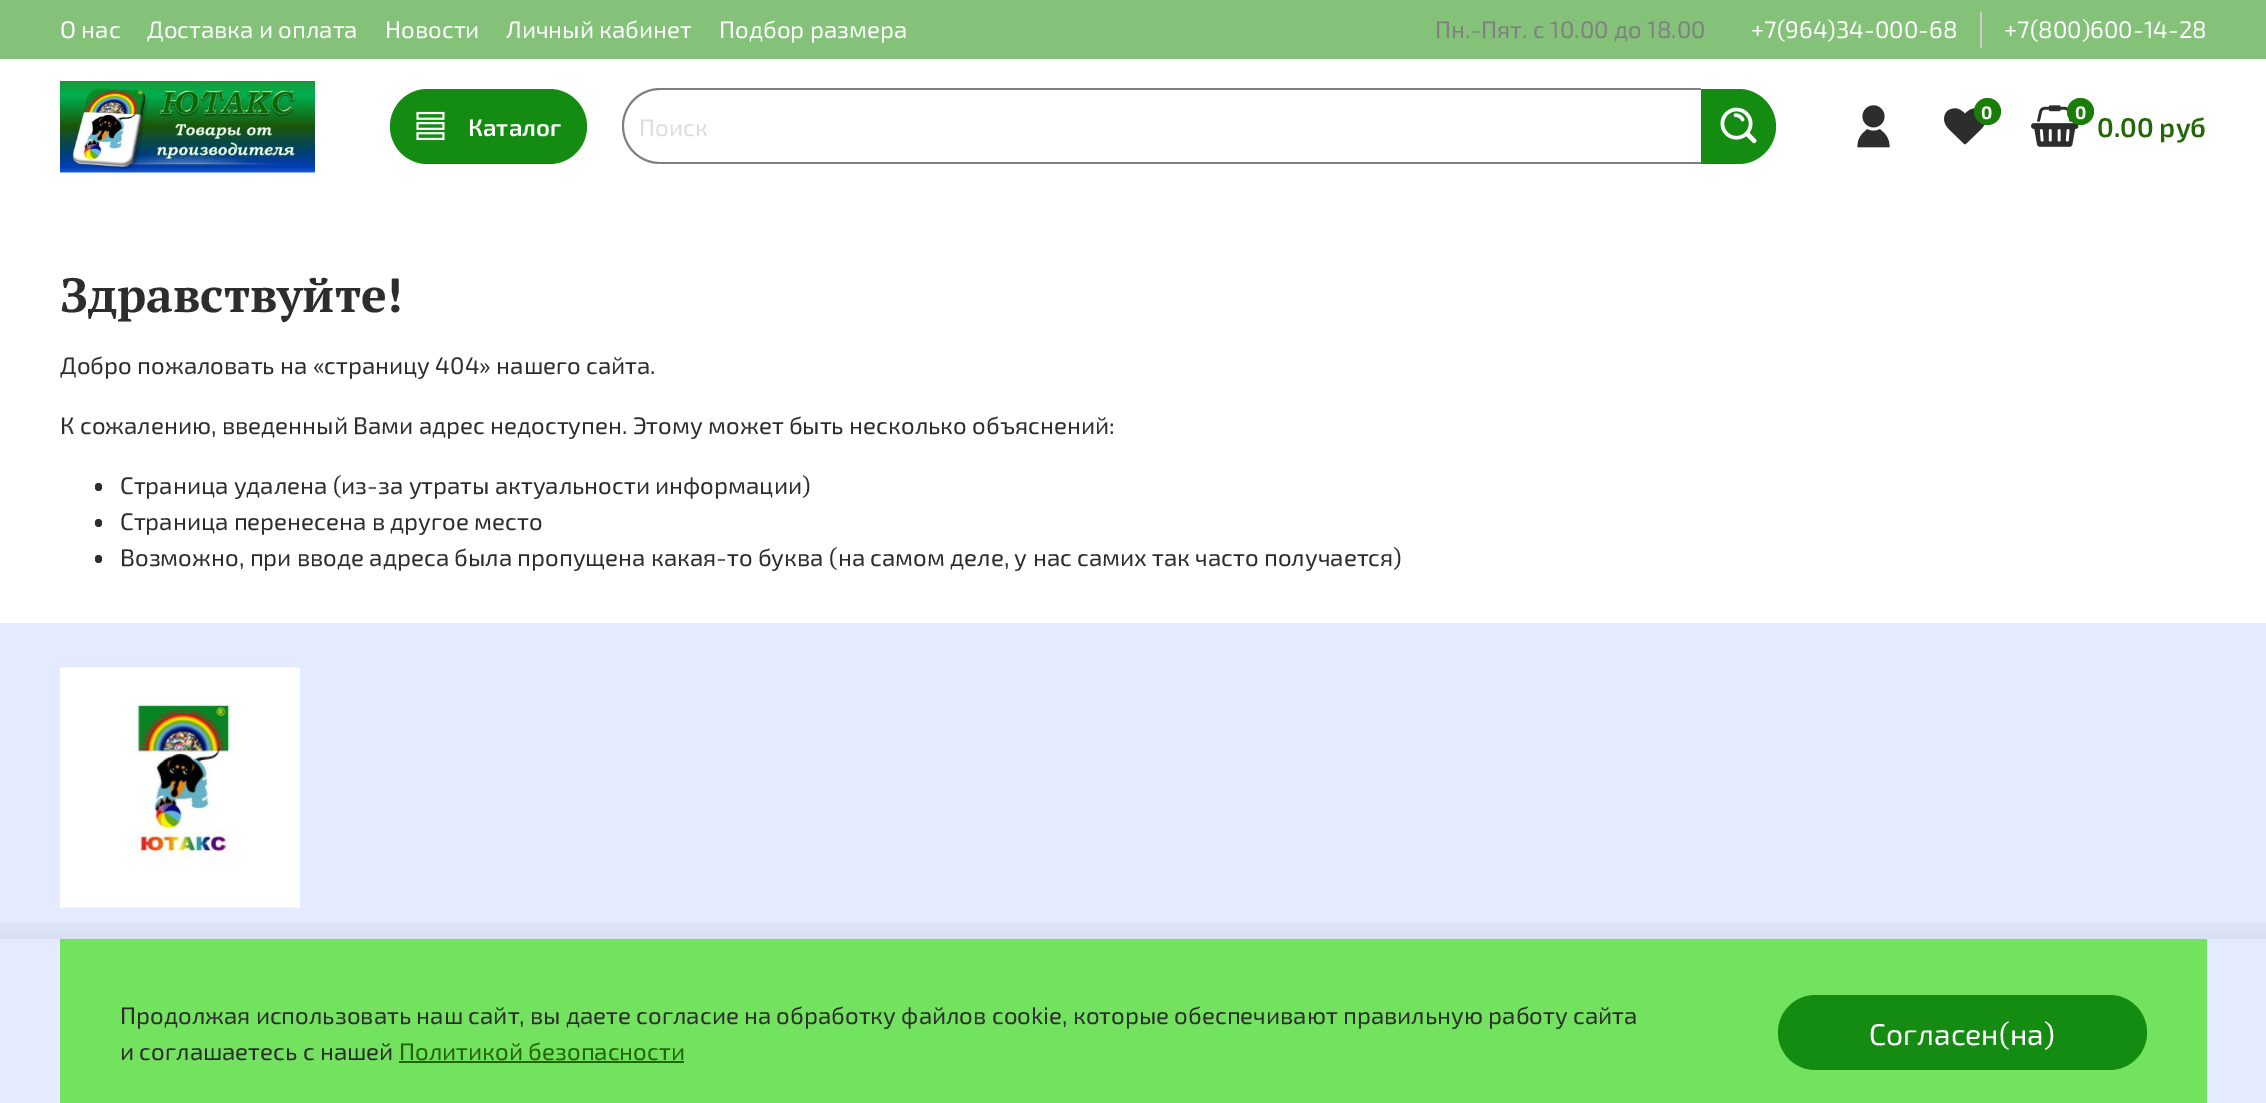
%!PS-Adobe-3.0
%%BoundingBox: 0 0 2266 1103
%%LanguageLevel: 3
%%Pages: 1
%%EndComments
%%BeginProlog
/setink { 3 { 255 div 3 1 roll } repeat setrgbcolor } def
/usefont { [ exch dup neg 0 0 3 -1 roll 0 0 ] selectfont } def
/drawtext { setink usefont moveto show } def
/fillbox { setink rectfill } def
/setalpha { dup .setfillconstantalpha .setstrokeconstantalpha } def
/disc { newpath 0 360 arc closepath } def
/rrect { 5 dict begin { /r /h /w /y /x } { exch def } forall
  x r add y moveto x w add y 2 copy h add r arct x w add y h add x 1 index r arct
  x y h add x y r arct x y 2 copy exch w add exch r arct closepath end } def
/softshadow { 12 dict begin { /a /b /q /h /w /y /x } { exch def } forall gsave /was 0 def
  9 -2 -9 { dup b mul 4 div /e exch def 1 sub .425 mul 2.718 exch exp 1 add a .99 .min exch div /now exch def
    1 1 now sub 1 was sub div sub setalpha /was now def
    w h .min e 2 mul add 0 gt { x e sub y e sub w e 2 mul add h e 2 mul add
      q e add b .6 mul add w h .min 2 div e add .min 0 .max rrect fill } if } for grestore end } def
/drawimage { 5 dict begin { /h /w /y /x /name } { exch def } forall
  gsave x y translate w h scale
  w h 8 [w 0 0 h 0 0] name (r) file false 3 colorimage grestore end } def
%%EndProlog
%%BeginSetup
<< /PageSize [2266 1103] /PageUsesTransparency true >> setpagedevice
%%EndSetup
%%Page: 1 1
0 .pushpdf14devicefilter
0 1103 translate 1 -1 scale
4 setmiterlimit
0 0 2266 1103 255 255 255 fillbox
0 0 2266 59 133 194 121 fillbox
(О нас) 60 38 /Exo2-Regular 24 255 255 255 drawtext
(Доставка и оплата) 147 38 /Exo2-Regular 24 255 255 255 drawtext
(Новости) 385 38 /Exo2-Regular 24 255 255 255 drawtext
(Личный кабинет) 506 38 /Exo2-Regular 24 255 255 255 drawtext
(Подбор размера) 719 38 /Exo2-Regular 24 255 255 255 drawtext
(Пн.-Пят. с 10.00 до 18.00) 1435 38 /Exo2-Regular 24 128 128 128 drawtext
1980 12 2 36 204 204 204 fillbox
(+7\(964\)34-000-68) 1751 38 /Exo2-Regular 24 255 255 255 drawtext
(+7\(800\)600-14-28) 2004 38 /Exo2-Regular 24 255 255 255 drawtext
(assets/img1.rgb) 60 81 255 92 drawimage
20 140 18 setink
390 89 197 75 37.5 rrect fill
(assets/img2.rgb) 416 111 29 30 drawimage
(Каталог) 468 136 /Exo2-SemiBold 24 255 255 255 drawtext
128 128 128 setink
660 88 moveto 1701 88 lineto 1701 164 lineto 660 164 lineto 639 164 622 147 622 126 curveto 622 105 639 88 660 88 curveto closepath 660 90 moveto 1701 90 lineto 1701 162 lineto 660 162 lineto 640 162 624 146 624 126 curveto 624 106 640 90 660 90 curveto closepath eofill
(Поиск) 639 136 /Exo2-Regular 24 221 221 221 drawtext
20 140 18 setink
1701 89 moveto 1738.5 89 lineto 1759 89 1776 106 1776 126.5 curveto 1776 147 1759 164 1738.5 164 curveto 1701 164 lineto closepath fill
(assets/img3.rgb) 1720 107 37 37 drawimage
(assets/img4.rgb) 1857 105 33 43 drawimage
(assets/img5.rgb) 1944 108 41 37 drawimage
25 125 8 setink
1987.5 111.5 13.5 disc fill
(0) 1981 119 /Exo2-Bold 18 255 255 255 drawtext
(assets/img6.rgb) 2031 105 48 42 drawimage
25 125 8 setink
2080.5 111.5 13.5 disc fill
(0) 2075 119 /Exo2-Bold 18 255 255 255 drawtext
(0.00 руб) 2097 137 /Exo2-SemiBold 27 35 102 6 drawtext
(Здравствуйте!) 60 312 /PTSerif-Bold 48 45 45 45 drawtext
(Добро пожаловать на «страницу 404» нашего сайта.) 60 374 /Exo2-Regular 24 45 45 45 drawtext
(К сожалению, введенный Вами адрес недоступен. Этому может быть несколько объяснений:) 60 434 /Exo2-Regular 24 45 45 45 drawtext
95 483 7 8 3.5 rrect fill
(Страница удалена \(из-за утраты актуальности информации\)) 120 494 /Exo2-Regular 24 45 45 45 drawtext
95 519 7 8 3.5 rrect fill
(Страница перенесена в другое место) 120 530 /Exo2-Regular 24 45 45 45 drawtext
95 555 7 8 3.5 rrect fill
(Возможно, при вводе адреса была пропущена какая-то буква \(на самом деле, у нас самих так часто получается\)) 120 566 /Exo2-Regular 24 45 45 45 drawtext
0 623 2266 480 229 235 255 fillbox
(assets/img7.rgb) 60 667 240 241 drawimage
gsave
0 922 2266 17 rectclip
0 0 0 setink
-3 935 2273 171 0 17 0.09 softshadow
grestore
60 939 2147 164 115 227 95 fillbox
(Продолжая использовать наш сайт, вы даете согласие на обработку файлов cookie, которые обеспечивают правильную работу сайта) 120 1024 /Exo2-Regular 24 45 45 45 drawtext
(и соглашаетесь с нашей) 120 1060 /Exo2-Regular 24 45 45 45 drawtext
(Политикой безопасности) 399 1060 /Exo2-Regular 24 35 102 6 drawtext
399 1061 285 2 35 102 6 fillbox
20 140 18 setink
1778 995 369 75 37.5 rrect fill
(Согласен\(на\)) 1869 1045 /Exo2-Regular 30 255 255 255 drawtext
.poppdf14devicefilter showpage
%%EOF
